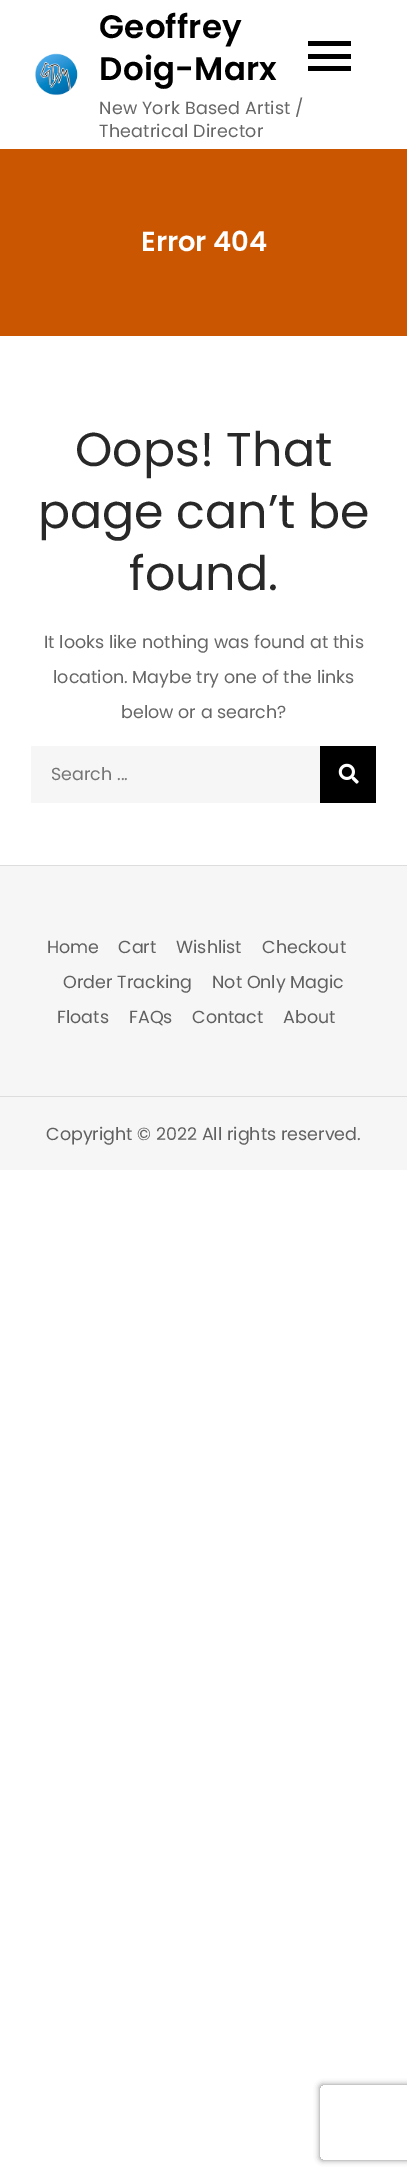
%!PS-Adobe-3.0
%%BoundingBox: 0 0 407 2177
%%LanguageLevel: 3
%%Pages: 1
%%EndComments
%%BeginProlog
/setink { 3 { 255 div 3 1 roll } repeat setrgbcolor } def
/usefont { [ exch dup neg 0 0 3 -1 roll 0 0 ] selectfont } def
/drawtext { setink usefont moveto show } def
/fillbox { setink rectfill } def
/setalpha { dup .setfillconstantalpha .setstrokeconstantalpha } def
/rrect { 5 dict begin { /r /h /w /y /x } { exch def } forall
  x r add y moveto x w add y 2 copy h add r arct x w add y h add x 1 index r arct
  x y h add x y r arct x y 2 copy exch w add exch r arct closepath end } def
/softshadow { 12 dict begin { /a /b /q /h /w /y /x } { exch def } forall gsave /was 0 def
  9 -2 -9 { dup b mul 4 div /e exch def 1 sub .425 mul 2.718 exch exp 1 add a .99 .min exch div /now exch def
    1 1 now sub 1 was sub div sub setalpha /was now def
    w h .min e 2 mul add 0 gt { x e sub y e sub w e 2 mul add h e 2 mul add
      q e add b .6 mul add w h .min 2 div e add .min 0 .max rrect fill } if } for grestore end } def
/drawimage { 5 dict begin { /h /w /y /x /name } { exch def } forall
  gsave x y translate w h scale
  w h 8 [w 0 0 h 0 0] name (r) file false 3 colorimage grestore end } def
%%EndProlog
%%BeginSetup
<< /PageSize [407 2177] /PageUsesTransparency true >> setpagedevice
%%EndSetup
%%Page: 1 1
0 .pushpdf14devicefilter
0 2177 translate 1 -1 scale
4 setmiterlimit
0 0 407 2177 255 255 255 fillbox
(assets/img1.rgb) 35 53 43 43 drawimage
/Poppins-SemiBold 32.5 usefont
0 0 0 setink
99 38 moveto 0.25 0 (Geoffrey) ashow
99 80 moveto 0.25 0 (Doig-Marx) ashow
/Poppins-Regular 17.5 usefont
102 102 102 setink
99 114 moveto 0.2 0 (New York Based Artist /) ashow
99 137 moveto 0.2 0 (Theatrical Director) ashow
308 54 43 5 0 0 0 fillbox
308 41 43 5 0 0 0 fillbox
308 66 43 5 0 0 0 fillbox
0 149 407 187 202 86 1 fillbox
(Error 404) 141 251 /Poppins-SemiBold 27.5 255 255 255 drawtext
(Oops! That) 75 466 /Poppins-Regular 47.5 40 40 40 drawtext
(page can’t be) 38 528 /Poppins-Regular 47.5 40 40 40 drawtext
(found.) 129 590 /Poppins-Regular 47.5 40 40 40 drawtext
(It looks like nothing was found at this) 44 648 /Poppins-Regular 17.5 102 102 102 drawtext
(location. Maybe try one of the links) 53 683 /Poppins-Regular 17.5 102 102 102 drawtext
(below or a search?) 121 718 /Poppins-Regular 17.5 102 102 102 drawtext
31 746 289 57 246 246 246 fillbox
(Search ...) 51 780 /Poppins-Regular 17.5 117 117 117 drawtext
320 746 56 57 0 0 0 fillbox
(assets/img2.rgb) 338 763 21 21 drawimage
0 866 407 304 246 246 246 fillbox
0 865 407 1 221 221 221 fillbox
(Home) 47 953 /Poppins-Regular 17.5 96 96 96 drawtext
(Cart) 118 953 /Poppins-Regular 17.5 96 96 96 drawtext
(Wishlist) 176 953 /Poppins-Regular 17.5 96 96 96 drawtext
(Checkout) 262 953 /Poppins-Regular 17.5 96 96 96 drawtext
(Order Tracking) 63 988 /Poppins-Regular 17.5 96 96 96 drawtext
(Not Only Magic) 212 988 /Poppins-Regular 17.5 96 96 96 drawtext
(Floats) 57 1023 /Poppins-Regular 17.5 96 96 96 drawtext
(FAQs) 129 1023 /Poppins-Regular 17.5 96 96 96 drawtext
(Contact) 192 1023 /Poppins-Regular 17.5 96 96 96 drawtext
(About) 283 1023 /Poppins-Regular 17.5 96 96 96 drawtext
0 1096 407 1 221 221 221 fillbox
(Copyright © 2022 All rights reserved.) 46 1140 /Poppins-Regular 17.5 96 96 96 drawtext
gsave
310 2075 moveto 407 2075 lineto 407 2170 lineto 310 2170 lineto closepath 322.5 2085 moveto 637.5 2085 lineto 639 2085 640 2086 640 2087.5 curveto 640 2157.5 lineto 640 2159 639 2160 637.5 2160 curveto 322.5 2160 lineto 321 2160 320 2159 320 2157.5 curveto 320 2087.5 lineto 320 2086 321 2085 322.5 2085 curveto closepath eoclip newpath
128 128 128 setink
320 2085 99 75 2.5 3 1 softshadow
grestore
.poppdf14devicefilter showpage
%%EOF
